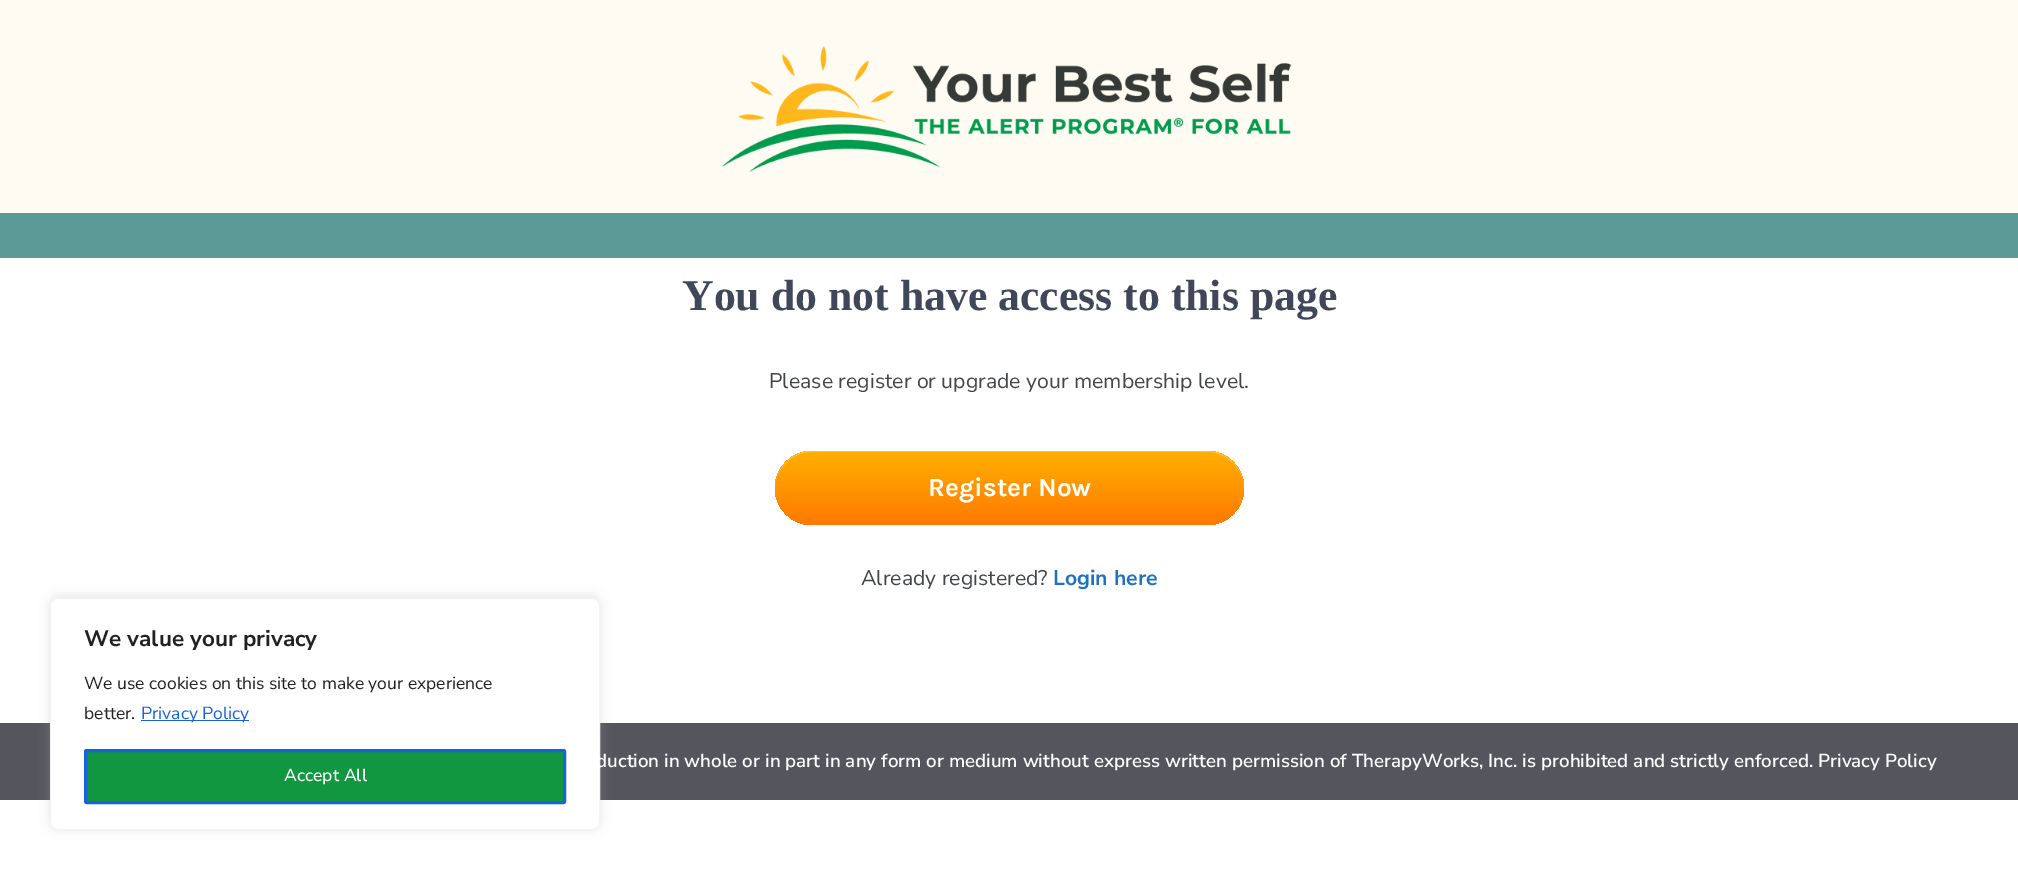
%!PS-Adobe-3.0
%%BoundingBox: 0 0 2018 879
%%LanguageLevel: 3
%%Pages: 1
%%EndComments
%%BeginProlog
/setink { 3 { 255 div 3 1 roll } repeat setrgbcolor } def
/usefont { [ exch dup neg 0 0 3 -1 roll 0 0 ] selectfont } def
/drawtext { setink usefont moveto show } def
/fillbox { setink rectfill } def
/setalpha { dup .setfillconstantalpha .setstrokeconstantalpha } def
/rrect { 5 dict begin { /r /h /w /y /x } { exch def } forall
  x r add y moveto x w add y 2 copy h add r arct x w add y h add x 1 index r arct
  x y h add x y r arct x y 2 copy exch w add exch r arct closepath end } def
/softshadow { 12 dict begin { /a /b /q /h /w /y /x } { exch def } forall gsave /was 0 def
  9 -2 -9 { dup b mul 4 div /e exch def 1 sub .425 mul 2.718 exch exp 1 add a .99 .min exch div /now exch def
    1 1 now sub 1 was sub div sub setalpha /was now def
    w h .min e 2 mul add 0 gt { x e sub y e sub w e 2 mul add h e 2 mul add
      q e add b .6 mul add w h .min 2 div e add .min 0 .max rrect fill } if } for grestore end } def
/drawimage { 5 dict begin { /h /w /y /x /name } { exch def } forall
  gsave x y translate w h scale
  w h 8 [w 0 0 h 0 0] name (r) file false 3 colorimage grestore end } def
%%EndProlog
%%BeginSetup
<< /PageSize [2018 879] /PageUsesTransparency true >> setpagedevice
%%EndSetup
%%Page: 1 1
0 .pushpdf14devicefilter
0 879 translate 1 -1 scale
4 setmiterlimit
0 0 2018 879 255 255 255 fillbox
0 0 2018 213 254 251 242 fillbox
(assets/img1.rgb) 722 46 570 126 drawimage
0 213 2018 45 91 154 151 fillbox
(You do not have access to this page) 682 310 /LiberationSerif-Bold 43.75 65 71 90 drawtext
(Please register or upgrade your membership level.) 769 388 /NunitoSans-Regular 21.25 66 70 73 drawtext
gsave 775 451 469 74 37 rrect clip newpath
<< /ShadingType 2 /ColorSpace /DeviceRGB /Coords [1009 451 1009 525] /Extend [true true] /Function << /FunctionType 2 /Domain [0 1] /C0 [1 0.69 0] /C1 [1 0.475 0] /N 1 >> >> shfill grestore
(Register Now) 928 496 /Karla-Bold 26.25 255 255 255 drawtext
0.22 setalpha
812 452 moveto 792 452 775 469 775 489 curveto 775 488 lineto 775 468 792 451 812 451 curveto 1207 451 lineto 1227 451 1244 468 1244 488 curveto 1244 489 lineto 1244 469 1227 452 1207 452 curveto closepath fill
1 setalpha
(Already registered?) 861 585 /NunitoSans-Regular 21.25 66 70 73 drawtext
(Login here) 1053 585 /NunitoSans-Bold 21.25 30 115 190 drawtext
0 723 2018 77 85 85 94 fillbox
172 171 171 setink
50 596 550 233 8 6 0.3 softshadow
255 255 255 setink
50.5 598.5 549 231 7.5 rrect gsave fill grestore
244 244 244 setink
stroke
(We value your privacy) 84 646 /NunitoSans-Bold 22.5 33 33 33 drawtext
(We use cookies on this site to make your experience) 84 689 /NunitoSans-Regular 17.5 33 33 33 drawtext
(better.) 84 719 /NunitoSans-Regular 17.5 33 33 33 drawtext
141 720 108 1 24 99 220 fillbox
(Privacy Policy) 141 719 /NunitoSans-Regular 17.5 24 99 220 drawtext
16 151 63 setink
85.5 750.5 479 52 1 rrect gsave fill grestore
24 99 220 setink
3 setlinewidth
stroke
(Accept All) 284 781 /NunitoSans-Medium 17.5 255 255 255 drawtext
(duction in whole or in part in any form or medium without express written permission of TherapyWorks, Inc. is prohibited and strictly enforced. Privacy Policy) 596 767 /NunitoSans-SemiBold 18.75 255 255 255 drawtext
.poppdf14devicefilter showpage
%%EOF
